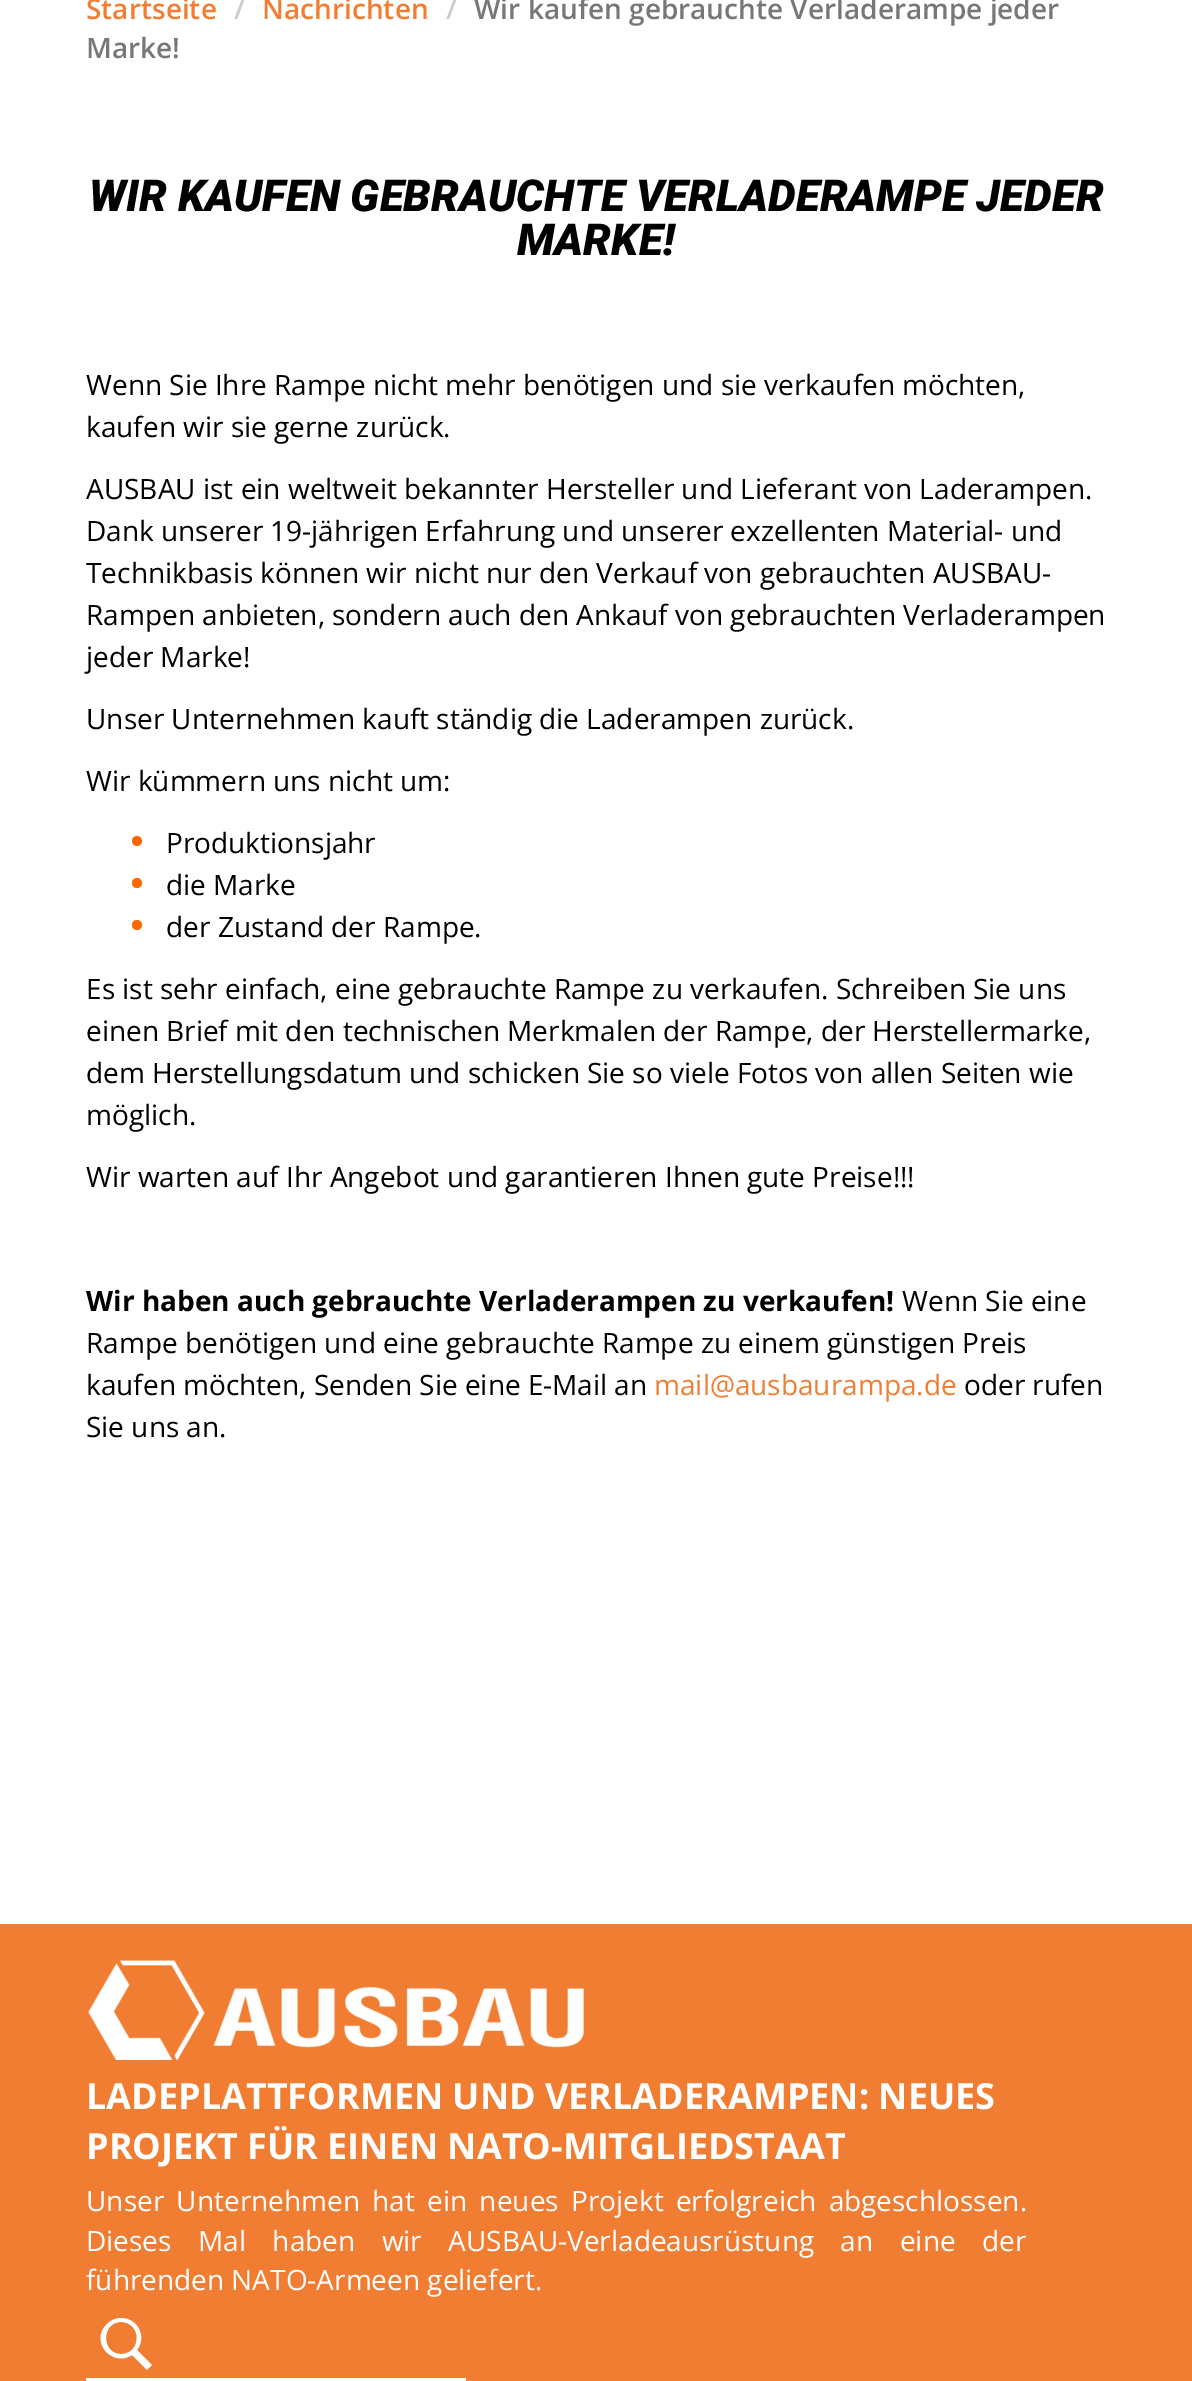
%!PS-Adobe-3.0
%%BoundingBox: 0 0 1192 2381
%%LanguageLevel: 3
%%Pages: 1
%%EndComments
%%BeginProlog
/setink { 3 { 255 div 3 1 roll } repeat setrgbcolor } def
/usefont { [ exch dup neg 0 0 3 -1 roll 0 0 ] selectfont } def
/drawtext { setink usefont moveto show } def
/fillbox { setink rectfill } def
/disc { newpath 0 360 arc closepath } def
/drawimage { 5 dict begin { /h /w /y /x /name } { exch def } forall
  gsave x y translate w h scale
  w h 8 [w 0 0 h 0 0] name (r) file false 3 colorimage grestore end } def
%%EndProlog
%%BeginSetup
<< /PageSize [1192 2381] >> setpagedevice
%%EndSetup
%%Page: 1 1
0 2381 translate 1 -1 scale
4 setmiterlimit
0 0 1192 2381 255 255 255 fillbox
(Startseite) 86 19 /OpenSans-SemiBold 28 240 125 49 drawtext
(/) 234 19 /OpenSans-SemiBold 28 204 204 204 drawtext
(Nachrichten) 262 19 /OpenSans-SemiBold 28 240 125 49 drawtext
(/) 446 19 /OpenSans-SemiBold 28 204 204 204 drawtext
(Wir kaufen gebrauchte Verladerampe jeder) 474 19 /OpenSans-SemiBold 28 119 119 119 drawtext
(Marke!) 86 58 /OpenSans-SemiBold 28 119 119 119 drawtext
(WIR KAUFEN GEBRAUCHTE VERLADERAMPE JEDER) 89 211 /Roboto-BlackItalic 44 0 0 0 drawtext
(MARKE!) 517 255 /Roboto-BlackItalic 44 0 0 0 drawtext
(Wenn Sie Ihre Rampe nicht mehr benötigen und sie verkaufen möchten,) 86 395 /OpenSans-Regular 28 0 0 0 drawtext
(kaufen wir sie gerne zurück.) 86 437 /OpenSans-Regular 28 0 0 0 drawtext
(AUSBAU ist ein weltweit bekannter Hersteller und Lieferant von Laderampen.) 86 499 /OpenSans-Regular 28 0 0 0 drawtext
(Dank unserer 19-jährigen Erfahrung und unserer exzellenten Material- und) 86 541 /OpenSans-Regular 28 0 0 0 drawtext
(Technikbasis können wir nicht nur den Verkauf von gebrauchten AUSBAU-) 86 583 /OpenSans-Regular 28 0 0 0 drawtext
(Rampen anbieten, sondern auch den Ankauf von gebrauchten Verladerampen) 86 625 /OpenSans-Regular 28 0 0 0 drawtext
(jeder Marke!) 86 667 /OpenSans-Regular 28 0 0 0 drawtext
(Unser Unternehmen kauft ständig die Laderampen zurück.) 86 729 /OpenSans-Regular 28 0 0 0 drawtext
(Wir kümmern uns nicht um:) 86 791 /OpenSans-Regular 28 0 0 0 drawtext
255 102 0 setink
137 841 5 disc fill
(Produktionsjahr) 166 853 /OpenSans-Regular 28 0 0 0 drawtext
255 102 0 setink
137 883 5 disc fill
(die Marke) 166 895 /OpenSans-Regular 28 0 0 0 drawtext
255 102 0 setink
137 925 5 disc fill
(der Zustand der Rampe.) 166 937 /OpenSans-Regular 28 0 0 0 drawtext
(Es ist sehr einfach, eine gebrauchte Rampe zu verkaufen. Schreiben Sie uns) 86 999 /OpenSans-Regular 28 0 0 0 drawtext
(einen Brief mit den technischen Merkmalen der Rampe, der Herstellermarke,) 86 1041 /OpenSans-Regular 28 0 0 0 drawtext
(dem Herstellungsdatum und schicken Sie so viele Fotos von allen Seiten wie) 86 1083 /OpenSans-Regular 28 0 0 0 drawtext
(möglich.) 86 1125 /OpenSans-Regular 28 0 0 0 drawtext
(Wir warten auf Ihr Angebot und garantieren Ihnen gute Preise!!!) 86 1187 /OpenSans-Regular 28 0 0 0 drawtext
(Wir haben auch gebrauchte Verladerampen zu verkaufen!) 86 1311 /OpenSans-Bold 28 0 0 0 drawtext
(Wenn Sie eine) 902 1311 /OpenSans-Regular 28 0 0 0 drawtext
(Rampe benötigen und eine gebrauchte Rampe zu einem günstigen Preis) 86 1353 /OpenSans-Regular 28 0 0 0 drawtext
(kaufen möchten, Senden Sie eine E-Mail an) 86 1395 /OpenSans-Regular 28 0 0 0 drawtext
(mail@ausbaurampa.de) 654 1395 /OpenSans-Regular 28 240 125 49 drawtext
(oder rufen) 964 1395 /OpenSans-Regular 28 0 0 0 drawtext
(Sie uns an.) 86 1437 /OpenSans-Regular 28 0 0 0 drawtext
0 1924 1192 457 240 125 49 fillbox
(assets/img1.rgb) 88 1960 496 100 drawimage
(LADEPLATTFORMEN UND VERLADERAMPEN: NEUES) 86 2109 /OpenSans-Bold 36 255 255 255 drawtext
(PROJEKT FÜR EINEN NATO-MITGLIEDSTAAT) 86 2159 /OpenSans-Bold 36 255 255 255 drawtext
/OpenSans-Regular 28 usefont
86 2211 moveto 5 0 32 (Unser Unternehmen hat ein neues Projekt erfolgreich abgeschlossen.) widthshow
86 2251 moveto 19.25 0 32 (Dieses Mal haben wir AUSBAU-Verladeausrüstung an eine der) widthshow
(führenden NATO-Armeen geliefert.) 86 2290 /OpenSans-Regular 28 255 255 255 drawtext
121 2318 moveto 116 2318 111 2320 107 2324 curveto 89 2341 112 2368 132 2355 curveto 147 2370 lineto 152 2365 lineto 137 2350 lineto 147 2337 138 2318 121 2318 curveto closepath 121 2322 moveto 142 2322 142 2354 121 2354 curveto 101 2354 101 2322 121 2322 curveto closepath fill
86 2378 380 3 255 255 255 fillbox
showpage
%%EOF
